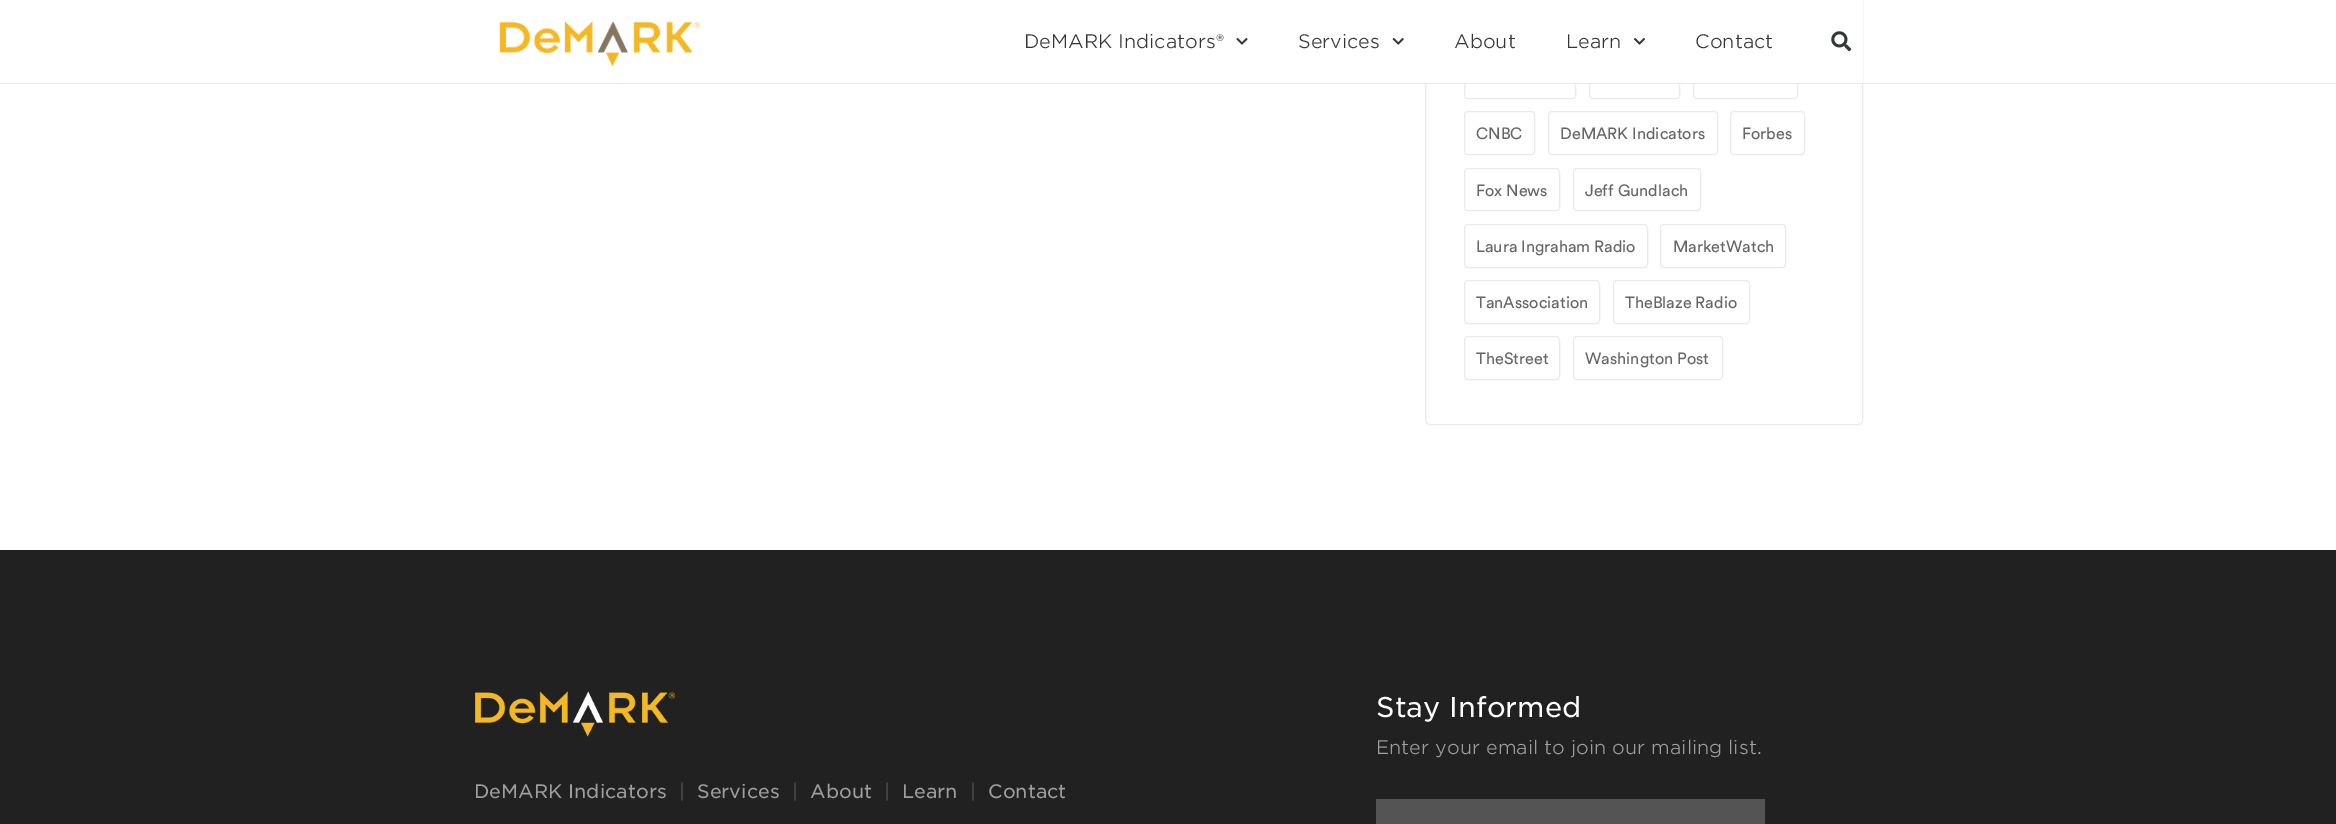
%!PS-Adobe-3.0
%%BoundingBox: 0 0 2336 824
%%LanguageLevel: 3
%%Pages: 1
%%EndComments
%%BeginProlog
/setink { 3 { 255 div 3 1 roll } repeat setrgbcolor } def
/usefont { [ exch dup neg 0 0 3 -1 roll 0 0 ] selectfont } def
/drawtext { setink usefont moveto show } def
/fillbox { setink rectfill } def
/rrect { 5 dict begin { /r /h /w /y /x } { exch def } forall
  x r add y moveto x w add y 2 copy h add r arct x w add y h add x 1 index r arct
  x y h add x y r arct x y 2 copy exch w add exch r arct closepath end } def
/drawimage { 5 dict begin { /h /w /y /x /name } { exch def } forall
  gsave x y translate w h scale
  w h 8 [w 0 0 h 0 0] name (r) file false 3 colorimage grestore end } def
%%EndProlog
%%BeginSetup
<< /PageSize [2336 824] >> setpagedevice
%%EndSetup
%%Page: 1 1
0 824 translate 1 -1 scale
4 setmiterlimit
0 0 2336 824 255 255 255 fillbox
234 234 234 setink
1425.5 -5.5 437 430 4.5 rrect stroke
1464.5 55.5 111 43 3.5 rrect stroke
1589.5 55.5 90 43 3.5 rrect stroke
1693.5 55.5 104 43 3.5 rrect stroke
1425 0 438 83 255 255 255 fillbox
0 83 2336 1 234 234 234 fillbox
(assets/img1.rgb) 499 21 201 46 drawimage
(DeMARK Indicators®) 1024 48 /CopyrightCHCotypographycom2-Light 18.75 54 54 54 drawtext
(assets/img2.rgb) 1236 38 12 7 drawimage
(Services) 1298 48 /CopyrightCHCotypographycom2-Light 18.75 54 54 54 drawtext
(assets/img3.rgb) 1392 38 12 7 drawimage
(About) 1454 48 /CopyrightCHCotypographycom2-Light 18.75 54 54 54 drawtext
(Learn) 1566 48 /CopyrightCHCotypographycom2-Light 18.75 54 54 54 drawtext
(assets/img4.rgb) 1634 38 11 7 drawimage
(Contact) 1695 48 /CopyrightCHCotypographycom2-Light 18.75 54 54 54 drawtext
(assets/img5.rgb) 1831 31 21 21 drawimage
234 234 234 setink
1464.5 111.5 70 43 3.5 rrect stroke
(CNBC) 1476 139 /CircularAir-Regular 16.25 102 102 102 drawtext
234 234 234 setink
1548.5 111.5 169 43 3.5 rrect stroke
(DeMARK Indicators) 1560 139 /CircularAir-Regular 16.25 102 102 102 drawtext
234 234 234 setink
1730.5 111.5 74 43 3.5 rrect stroke
(Forbes) 1742 139 /CircularAir-Regular 16.25 102 102 102 drawtext
234 234 234 setink
1464.5 168.5 95 42 3.5 rrect stroke
(Fox News) 1476 196 /CircularAir-Regular 16.25 102 102 102 drawtext
234 234 234 setink
1573.5 168.5 127 42 3.5 rrect stroke
(Jeff Gundlach) 1585 196 /CircularAir-Regular 16.25 102 102 102 drawtext
234 234 234 setink
1464.5 224.5 183 43 3.5 rrect stroke
(Laura Ingraham Radio) 1476 252 /CircularAir-Regular 16.25 102 102 102 drawtext
234 234 234 setink
1660.5 224.5 125 43 3.5 rrect stroke
(MarketWatch) 1673 252 /CircularAir-Regular 16.25 102 102 102 drawtext
234 234 234 setink
1464.5 280.5 135 43 3.5 rrect stroke
(TanAssociation) 1476 308 /CircularAir-Regular 16.25 102 102 102 drawtext
234 234 234 setink
1613.5 280.5 136 43 3.5 rrect stroke
(TheBlaze Radio) 1625 308 /CircularAir-Regular 16.25 102 102 102 drawtext
234 234 234 setink
1464.5 336.5 95 43 3.5 rrect stroke
(TheStreet) 1476 364 /CircularAir-Regular 16.25 102 102 102 drawtext
234 234 234 setink
1573.5 336.5 149 43 3.5 rrect stroke
(Washington Post) 1585 364 /CircularAir-Regular 16.25 102 102 102 drawtext
0 550 2336 274 33 33 33 fillbox
(Stay Informed) 1376 717 /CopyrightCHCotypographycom-Light 27.5 255 255 255 drawtext
(Enter your email to join our mailing list.) 1376 754 /CopyrightCHCotypographycom2-Light 18.75 158 158 158 drawtext
1376 799 389 25 84 84 84 fillbox
(assets/img6.rgb) 475 691 200 46 drawimage
(DeMARK Indicators) 474 798 /CopyrightCHCotypographycom-Light 18.75 158 158 158 drawtext
(|) 679 798 /CopyrightCHCotypographycom-Light 18.75 77 77 77 drawtext
(Services) 697 798 /CopyrightCHCotypographycom-Light 18.75 158 158 158 drawtext
(|) 792 798 /CopyrightCHCotypographycom-Light 18.75 77 77 77 drawtext
(About) 810 798 /CopyrightCHCotypographycom-Light 18.75 158 158 158 drawtext
(|) 884 798 /CopyrightCHCotypographycom-Light 18.75 77 77 77 drawtext
(Learn) 902 798 /CopyrightCHCotypographycom-Light 18.75 158 158 158 drawtext
(|) 970 798 /CopyrightCHCotypographycom-Light 18.75 77 77 77 drawtext
(Contact) 988 798 /CopyrightCHCotypographycom-Light 18.75 158 158 158 drawtext
showpage
%%EOF
